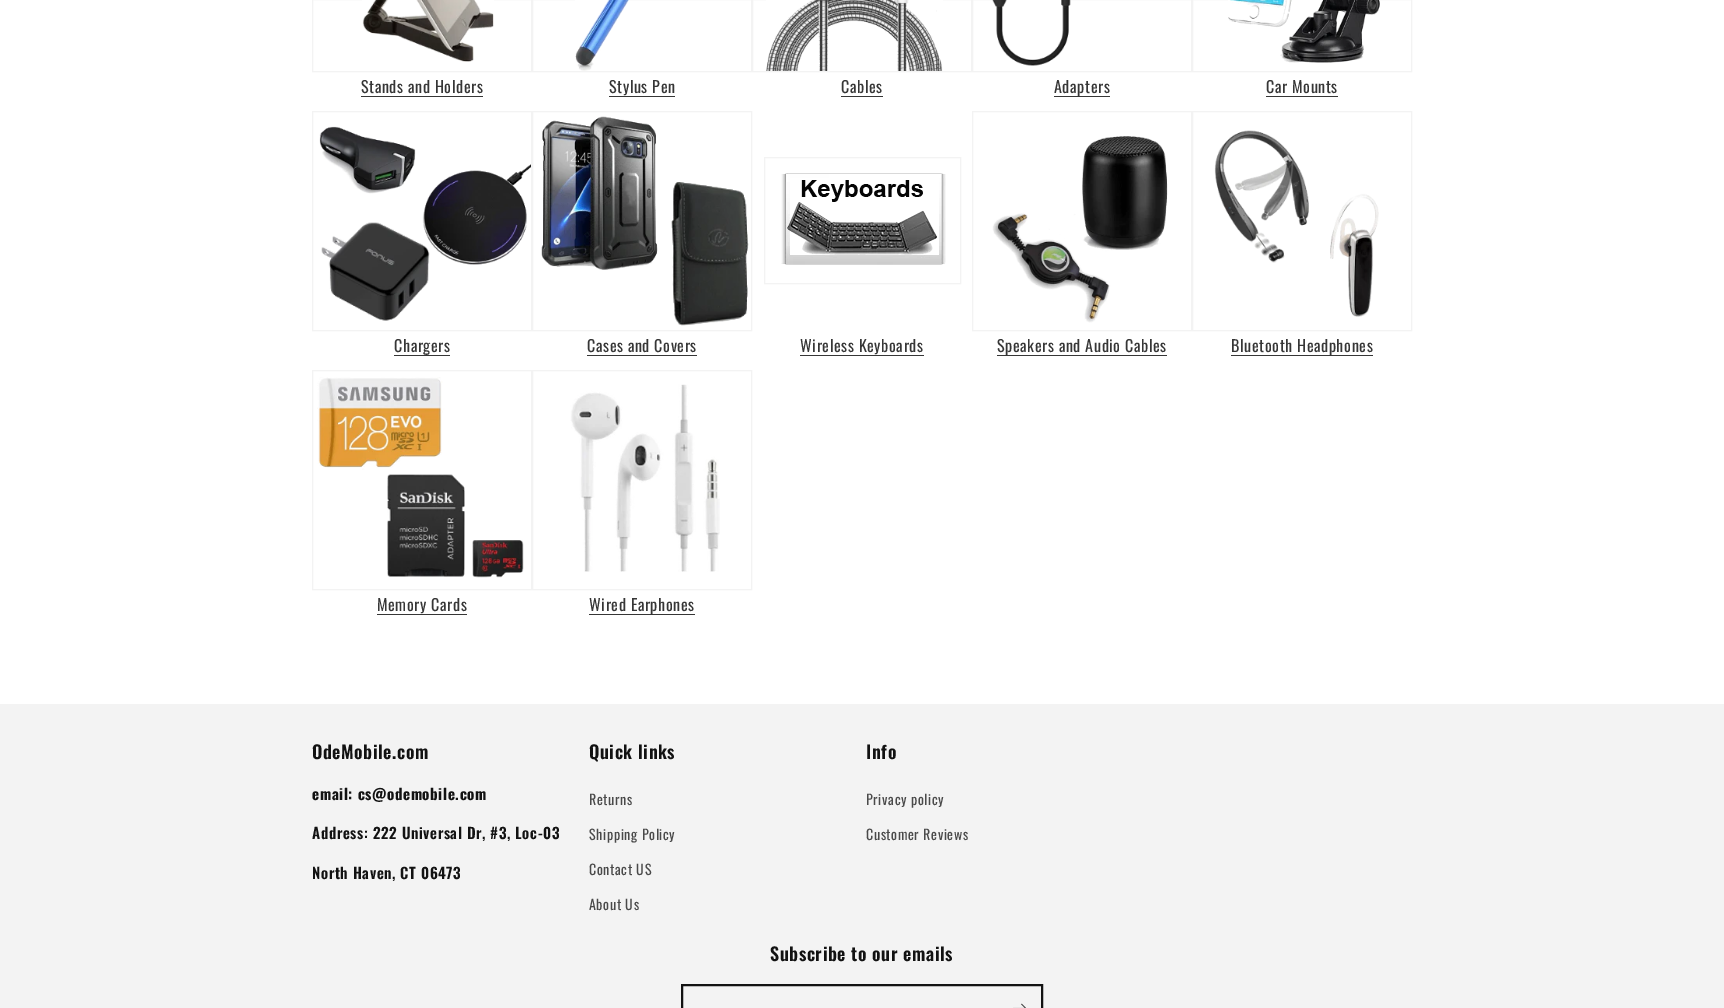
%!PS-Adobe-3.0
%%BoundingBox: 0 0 1724 1008
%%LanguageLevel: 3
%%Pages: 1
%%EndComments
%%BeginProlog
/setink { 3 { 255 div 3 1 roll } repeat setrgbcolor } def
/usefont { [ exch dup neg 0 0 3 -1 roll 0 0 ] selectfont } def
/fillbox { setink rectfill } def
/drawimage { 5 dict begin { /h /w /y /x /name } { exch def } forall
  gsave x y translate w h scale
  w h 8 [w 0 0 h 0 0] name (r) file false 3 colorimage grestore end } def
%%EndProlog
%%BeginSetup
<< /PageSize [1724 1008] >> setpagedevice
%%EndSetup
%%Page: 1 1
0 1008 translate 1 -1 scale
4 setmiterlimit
0 0 1724 1008 255 255 255 fillbox
243 243 243 setink
312.5 -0.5 219 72 rectstroke
(assets/img1.rgb) 362 0 132 62 drawimage
/Oswald-Regular 16 usefont
54 54 54 setink
361 93 moveto 0.6 0 (Stands and Holders) ashow
361 96 122 1 54 54 54 fillbox
243 243 243 setink
532.5 -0.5 219 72 rectstroke
(assets/img2.rgb) 575 0 54 71 drawimage
54 54 54 setink
609 93 moveto 0.6 0 (Stylus Pen) ashow
609 96 66 1 54 54 54 fillbox
243 243 243 setink
752.5 -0.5 219 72 rectstroke
(assets/img3.rgb) 766 0 177 71 drawimage
54 54 54 setink
841 93 moveto 0.6 0 (Cables) ashow
841 96 42 1 54 54 54 fillbox
243 243 243 setink
972.5 -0.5 219 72 rectstroke
(assets/img4.rgb) 992 0 79 66 drawimage
1054 96 56 1 54 54 54 fillbox
1054 93 moveto 0.6 0 (Adapters) ashow
243 243 243 setink
1192.5 -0.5 219 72 rectstroke
(assets/img5.rgb) 1228 0 152 63 drawimage
54 54 54 setink
1266 93 moveto 0.6 0 (Car Mounts) ashow
1266 96 72 1 54 54 54 fillbox
243 243 243 setink
312.5 111.5 219 219 rectstroke
(assets/img6.rgb) 319 126 212 195 drawimage
54 54 54 setink
394 352 moveto 0.6 0 (Chargers) ashow
394 355 56 1 54 54 54 fillbox
243 243 243 setink
532.5 111.5 219 219 rectstroke
(assets/img7.rgb) 541 116 208 210 drawimage
54 54 54 setink
587 352 moveto 0.6 0 (Cases and Covers) ashow
587 355 110 1 54 54 54 fillbox
243 243 243 setink
764.5 157.5 196 126 rectstroke
(assets/img8.rgb) 781 173 165 92 drawimage
54 54 54 setink
800 352 moveto 0.6 0 (Wireless Keyboards) ashow
800 355 124 1 54 54 54 fillbox
243 243 243 setink
972.5 111.5 219 219 rectstroke
(assets/img9.rgb) 992 136 176 187 drawimage
997 355 170 1 54 54 54 fillbox
997 352 moveto 0.6 0 (Speakers and Audio Cables) ashow
243 243 243 setink
1192.5 111.5 219 219 rectstroke
(assets/img10.rgb) 1214 130 165 187 drawimage
1231 355 142 1 54 54 54 fillbox
1231 352 moveto 0.6 0 (Bluetooth Headphones) ashow
243 243 243 setink
312.5 370.5 219 219 rectstroke
(assets/img11.rgb) 317 377 207 201 drawimage
54 54 54 setink
377 611 moveto 0.6 0 (Memory Cards) ashow
377 614 90 1 54 54 54 fillbox
243 243 243 setink
532.5 370.5 219 219 rectstroke
(assets/img12.rgb) 570 384 150 188 drawimage
589 614 106 1 54 54 54 fillbox
589 611 moveto 0.6 0 (Wired Earphones) ashow
0 704 1724 304 243 243 243 fillbox
/Oswald-SemiBold 18 usefont
18 18 18 setink
312 759 moveto 0.6 0 (OdeMobile.com) ashow
/Oswald-Bold 15 usefont
312 800 moveto 0.6 0 (email: cs@odemobile.com) ashow
/Oswald-SemiBold 15 usefont
312 839 moveto 0.6 0 (Address: 222 Universal Dr, #3, Loc-03) ashow
312 879 moveto 0.6 0 (North Haven, CT 06473) ashow
/Oswald-SemiBold 18 usefont
589 759 moveto 0.6 0 (Quick links) ashow
/Oswald-Regular 14 usefont
74 74 74 setink
589 805 moveto 0.6 0 (Returns) ashow
589 840 moveto 0.6 0 (Shipping Policy) ashow
589 875 moveto 0.6 0 (Contact US) ashow
589 910 moveto 0.6 0 (About Us) ashow
/Oswald-SemiBold 18 usefont
18 18 18 setink
866 759 moveto 0.6 0 (Info) ashow
/Oswald-Regular 14 usefont
74 74 74 setink
866 805 moveto 0.6 0 (Privacy policy) ashow
866 840 moveto 0.6 0 (Customer Reviews) ashow
/Oswald-SemiBold 18 usefont
18 18 18 setink
770 961 moveto 0.6 0 (Subscribe to our emails) ashow
2 setlinewidth
682 985 360 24 rectstroke
(assets/img13.rgb) 1013 1003 13 5 drawimage
showpage
%%EOF
